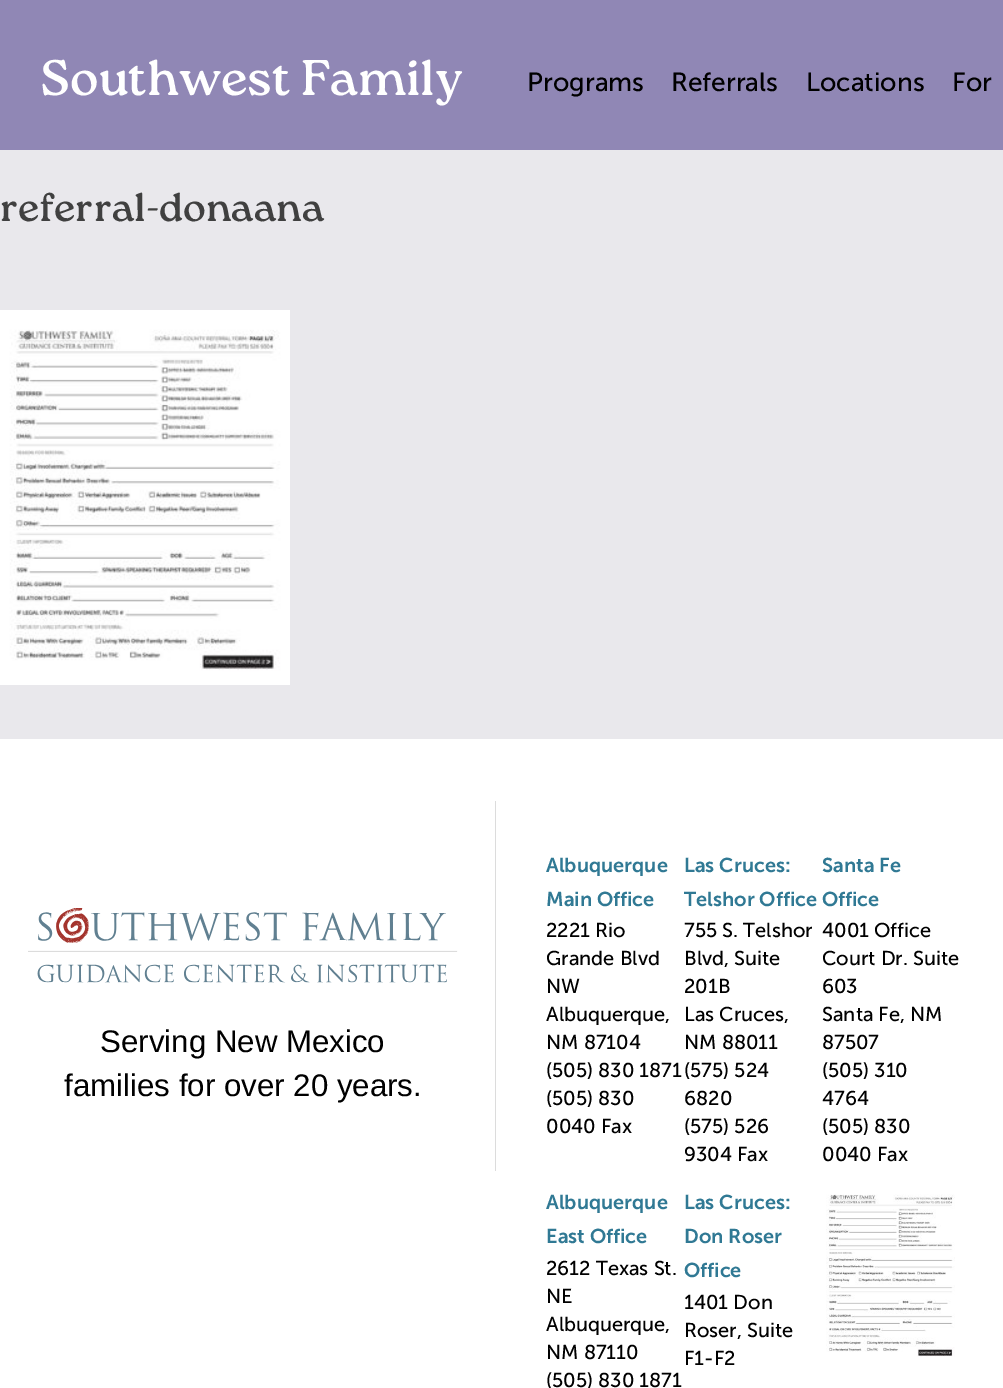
%!PS-Adobe-3.0
%%BoundingBox: 0 0 1003 1388
%%LanguageLevel: 3
%%Pages: 1
%%EndComments
%%BeginProlog
/setink { 3 { 255 div 3 1 roll } repeat setrgbcolor } def
/usefont { [ exch dup neg 0 0 3 -1 roll 0 0 ] selectfont } def
/drawtext { setink usefont moveto show } def
/fillbox { setink rectfill } def
/drawimage { 5 dict begin { /h /w /y /x /name } { exch def } forall
  gsave x y translate w h scale
  w h 8 [w 0 0 h 0 0] name (r) file false 3 colorimage grestore end } def
%%EndProlog
%%BeginSetup
<< /PageSize [1003 1388] >> setpagedevice
%%EndSetup
%%Page: 1 1
0 1388 translate 1 -1 scale
4 setmiterlimit
0 0 1003 1388 233 232 236 fillbox
0 0 1003 150 144 135 181 fillbox
(Southwest Family) 40 95 /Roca-Regular 50 255 255 255 drawtext
(Programs) 527 91 /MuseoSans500-Regular 26.25 0 0 0 drawtext
(Referrals) 671 91 /MuseoSans500-Regular 26.25 0 0 0 drawtext
(Locations) 806 91 /MuseoSans500-Regular 26.25 0 0 0 drawtext
(For) 952 91 /MuseoSans500-Regular 26.25 0 0 0 drawtext
(referral-donaana) 0 221 /Roca-Regular 40 64 64 64 drawtext
(assets/img1.rgb) 0 310 290 375 drawimage
0 739 1003 649 255 255 255 fillbox
495 801 1 370 220 220 220 fillbox
(assets/img2.rgb) 28 908 430 75 drawimage
(Serving New Mexico) 100 1052 /LiberationSans-Regular 31.25 0 0 0 drawtext
(families for over 20 years.) 64 1096 /LiberationSans-Regular 31.25 0 0 0 drawtext
(Albuquerque) 546 872 /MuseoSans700-SemiBold 20 48 121 148 drawtext
(Main Office) 546 906 /MuseoSans700-SemiBold 20 48 121 148 drawtext
(2221 Rio) 546 937 /MuseoSans500-Regular 20 0 0 0 drawtext
(Grande Blvd) 546 965 /MuseoSans500-Regular 20 0 0 0 drawtext
(NW) 546 993 /MuseoSans500-Regular 20 0 0 0 drawtext
(Albuquerque,) 546 1021 /MuseoSans500-Regular 20 0 0 0 drawtext
(NM 87104) 546 1049 /MuseoSans500-Regular 20 0 0 0 drawtext
(\(505\) 830 1871) 546 1077 /MuseoSans500-Regular 20 0 0 0 drawtext
(\(505\) 830) 546 1105 /MuseoSans500-Regular 20 0 0 0 drawtext
(0040 Fax) 546 1133 /MuseoSans500-Regular 20 0 0 0 drawtext
(Las Cruces:) 684 872 /MuseoSans700-SemiBold 20 48 121 148 drawtext
(Telshor Office Office) 684 906 /MuseoSans700-SemiBold 20 48 121 148 drawtext
(755 S. Telshor) 684 937 /MuseoSans500-Regular 20 0 0 0 drawtext
(Blvd, Suite) 684 965 /MuseoSans500-Regular 20 0 0 0 drawtext
(201B) 684 993 /MuseoSans500-Regular 20 0 0 0 drawtext
(Las Cruces,) 684 1021 /MuseoSans500-Regular 20 0 0 0 drawtext
(NM 88011) 684 1049 /MuseoSans500-Regular 20 0 0 0 drawtext
(\(575\) 524) 684 1077 /MuseoSans500-Regular 20 0 0 0 drawtext
(6820) 684 1105 /MuseoSans500-Regular 20 0 0 0 drawtext
(\(575\) 526) 684 1133 /MuseoSans500-Regular 20 0 0 0 drawtext
(9304 Fax) 684 1161 /MuseoSans500-Regular 20 0 0 0 drawtext
(Santa Fe) 822 872 /MuseoSans700-SemiBold 20 48 121 148 drawtext
(4001 Office) 822 937 /MuseoSans500-Regular 20 0 0 0 drawtext
(Court Dr. Suite) 822 965 /MuseoSans500-Regular 20 0 0 0 drawtext
(603) 822 993 /MuseoSans500-Regular 20 0 0 0 drawtext
(Santa Fe, NM) 822 1021 /MuseoSans500-Regular 20 0 0 0 drawtext
(87507) 822 1049 /MuseoSans500-Regular 20 0 0 0 drawtext
(\(505\) 310) 822 1077 /MuseoSans500-Regular 20 0 0 0 drawtext
(4764) 822 1105 /MuseoSans500-Regular 20 0 0 0 drawtext
(\(505\) 830) 822 1133 /MuseoSans500-Regular 20 0 0 0 drawtext
(0040 Fax) 822 1161 /MuseoSans500-Regular 20 0 0 0 drawtext
(Albuquerque) 546 1209 /MuseoSans700-SemiBold 20 48 121 148 drawtext
(East Office) 546 1243 /MuseoSans700-SemiBold 20 48 121 148 drawtext
(2612 Texas St.) 546 1275 /MuseoSans500-Regular 20 0 0 0 drawtext
(NE) 546 1303 /MuseoSans500-Regular 20 0 0 0 drawtext
(Albuquerque,) 546 1331 /MuseoSans500-Regular 20 0 0 0 drawtext
(NM 87110) 546 1359 /MuseoSans500-Regular 20 0 0 0 drawtext
(\(505\) 830 1871) 546 1387 /MuseoSans500-Regular 20 0 0 0 drawtext
(Las Cruces:) 684 1209 /MuseoSans700-SemiBold 20 48 121 148 drawtext
(Don Roser) 684 1243 /MuseoSans700-SemiBold 20 48 121 148 drawtext
(Office) 684 1277 /MuseoSans700-SemiBold 20 48 121 148 drawtext
(1401 Don) 684 1309 /MuseoSans500-Regular 20 0 0 0 drawtext
(Roser, Suite) 684 1337 /MuseoSans500-Regular 20 0 0 0 drawtext
(F1-F2) 684 1365 /MuseoSans500-Regular 20 0 0 0 drawtext
(assets/img3.rgb) 826 1194 129 163 drawimage
showpage
%%EOF
